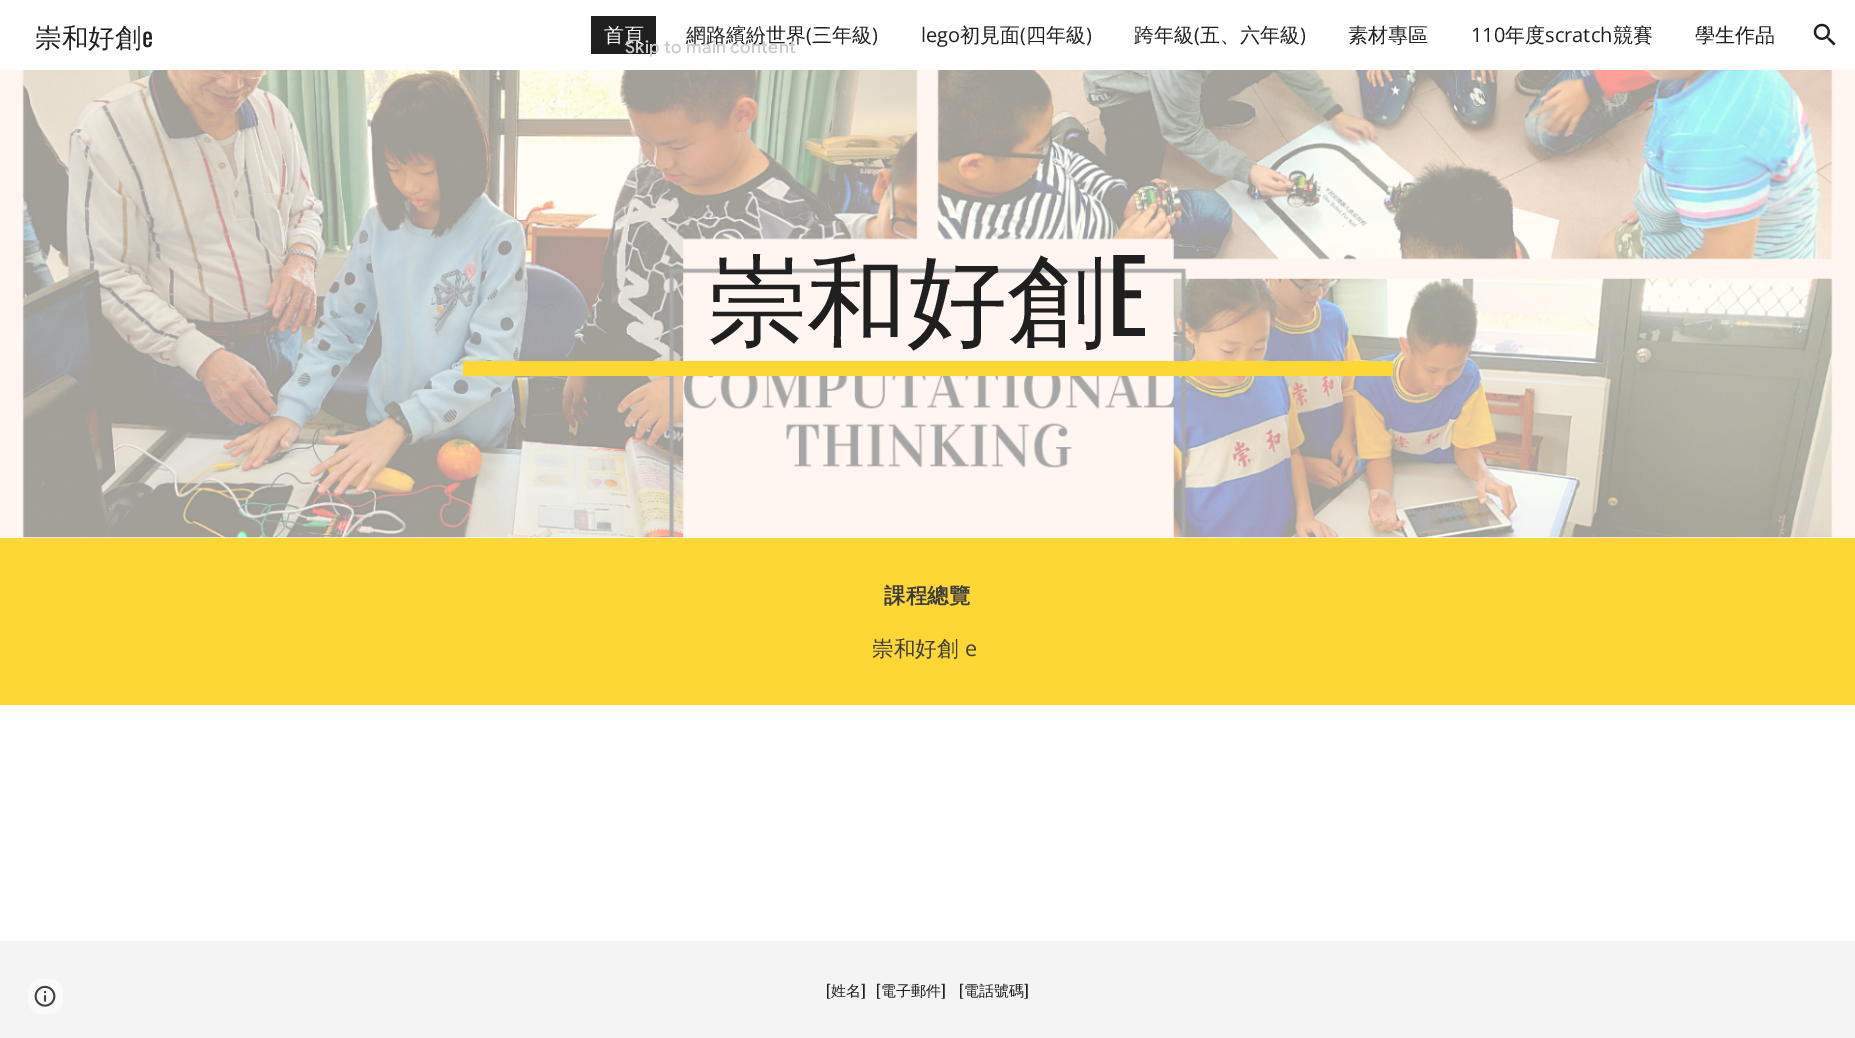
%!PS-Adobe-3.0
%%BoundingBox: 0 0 1855 1038
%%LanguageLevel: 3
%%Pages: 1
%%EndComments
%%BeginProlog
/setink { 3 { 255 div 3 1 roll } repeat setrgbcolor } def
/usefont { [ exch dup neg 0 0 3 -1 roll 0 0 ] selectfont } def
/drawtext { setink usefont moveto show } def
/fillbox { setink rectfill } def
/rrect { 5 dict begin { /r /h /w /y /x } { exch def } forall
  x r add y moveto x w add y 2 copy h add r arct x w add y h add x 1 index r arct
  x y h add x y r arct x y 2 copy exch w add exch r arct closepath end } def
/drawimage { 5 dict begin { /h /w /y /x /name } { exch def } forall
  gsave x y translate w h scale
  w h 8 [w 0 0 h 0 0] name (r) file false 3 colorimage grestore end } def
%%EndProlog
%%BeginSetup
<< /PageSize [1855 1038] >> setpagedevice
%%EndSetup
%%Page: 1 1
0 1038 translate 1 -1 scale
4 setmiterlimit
0 0 1855 1038 255 255 255 fillbox
(崇和好創) 35 47 /WenQuanYiZenHei-Medium 26.5 31 31 31 drawtext
(e) 142 47 /Oswald-Regular 26.5 31 31 31 drawtext
591 16 65 38 31 31 31 fillbox
(首頁) 604 42 /WenQuanYiZenHei-Medium 20 255 255 255 drawtext
(網路繽紛世界 三年級) 686 42 /WenQuanYiZenHei-Medium 20 31 31 31 drawtext
(\() 806 42 /OpenSans-Regular 20 31 31 31 drawtext
(\)) 872 42 /OpenSans-Regular 20 31 31 31 drawtext
(lego) 921 42 /OpenSans-Regular 20 31 31 31 drawtext
(初見面 四年級) 960 42 /WenQuanYiZenHei-Medium 20 31 31 31 drawtext
(\() 1020 42 /OpenSans-Regular 20 31 31 31 drawtext
(\)) 1086 42 /OpenSans-Regular 20 31 31 31 drawtext
(跨年級 五、六年級) 1134 42 /WenQuanYiZenHei-Medium 20 31 31 31 drawtext
(\() 1194 42 /OpenSans-Regular 20 31 31 31 drawtext
(\)) 1300 42 /OpenSans-Regular 20 31 31 31 drawtext
(素材專區) 1348 42 /WenQuanYiZenHei-Medium 20 31 31 31 drawtext
(110) 1471 42 /OpenSans-Regular 20 31 31 31 drawtext
(年度) 1505 42 /WenQuanYiZenHei-Medium 20 31 31 31 drawtext
(scratch) 1545 42 /OpenSans-Regular 20 31 31 31 drawtext
(競賽) 1613 42 /WenQuanYiZenHei-Medium 20 31 31 31 drawtext
(學生作品) 1695 42 /WenQuanYiZenHei-Medium 20 31 31 31 drawtext
(assets/img1.rgb) 1813 23 23 23 drawimage
(assets/img2.rgb) 0 70 1855 468 drawimage
(崇和好創) 707 336 /WenQuanYiZenHei-Medium 100 31 31 31 drawtext
(E) 1107 336 /Oswald-Regular 100 31 31 31 drawtext
463 361 930 15 253 216 53 fillbox
0 538 1855 167 253 216 53 fillbox
(課程總覽) 884 603 /WenQuanYiZenHei-Bold 21.5 61 61 61 drawtext
(崇和好創) 872 656 /WenQuanYiZenHei-Medium 21.5 61 61 61 drawtext
(e) 965 656 /OpenSans-Regular 21.5 61 61 61 drawtext
0 941 1855 97 244 244 244 fillbox
250 250 250 setink
28 979 35 35 13 rrect fill
(assets/img3.rgb) 34 985 22 22 drawimage
([) 826 996 /Oswald-Regular 15 31 31 31 drawtext
(姓名) 831 996 /WenQuanYiZenHei-Medium 15 31 31 31 drawtext
(]   [) 861 996 /Oswald-Regular 15 31 31 31 drawtext
(電子郵件) 881 996 /WenQuanYiZenHei-Medium 15 31 31 31 drawtext
(]    [) 941 996 /Oswald-Regular 15 31 31 31 drawtext
(電話號碼) 964 996 /WenQuanYiZenHei-Medium 15 31 31 31 drawtext
(]) 1024 996 /Oswald-Regular 15 31 31 31 drawtext
/GoogleSans-Medium 17.5 usefont
203 203 203 setink
625 53 moveto 0.2 0 (Skip to main content) ashow
showpage
%%EOF
